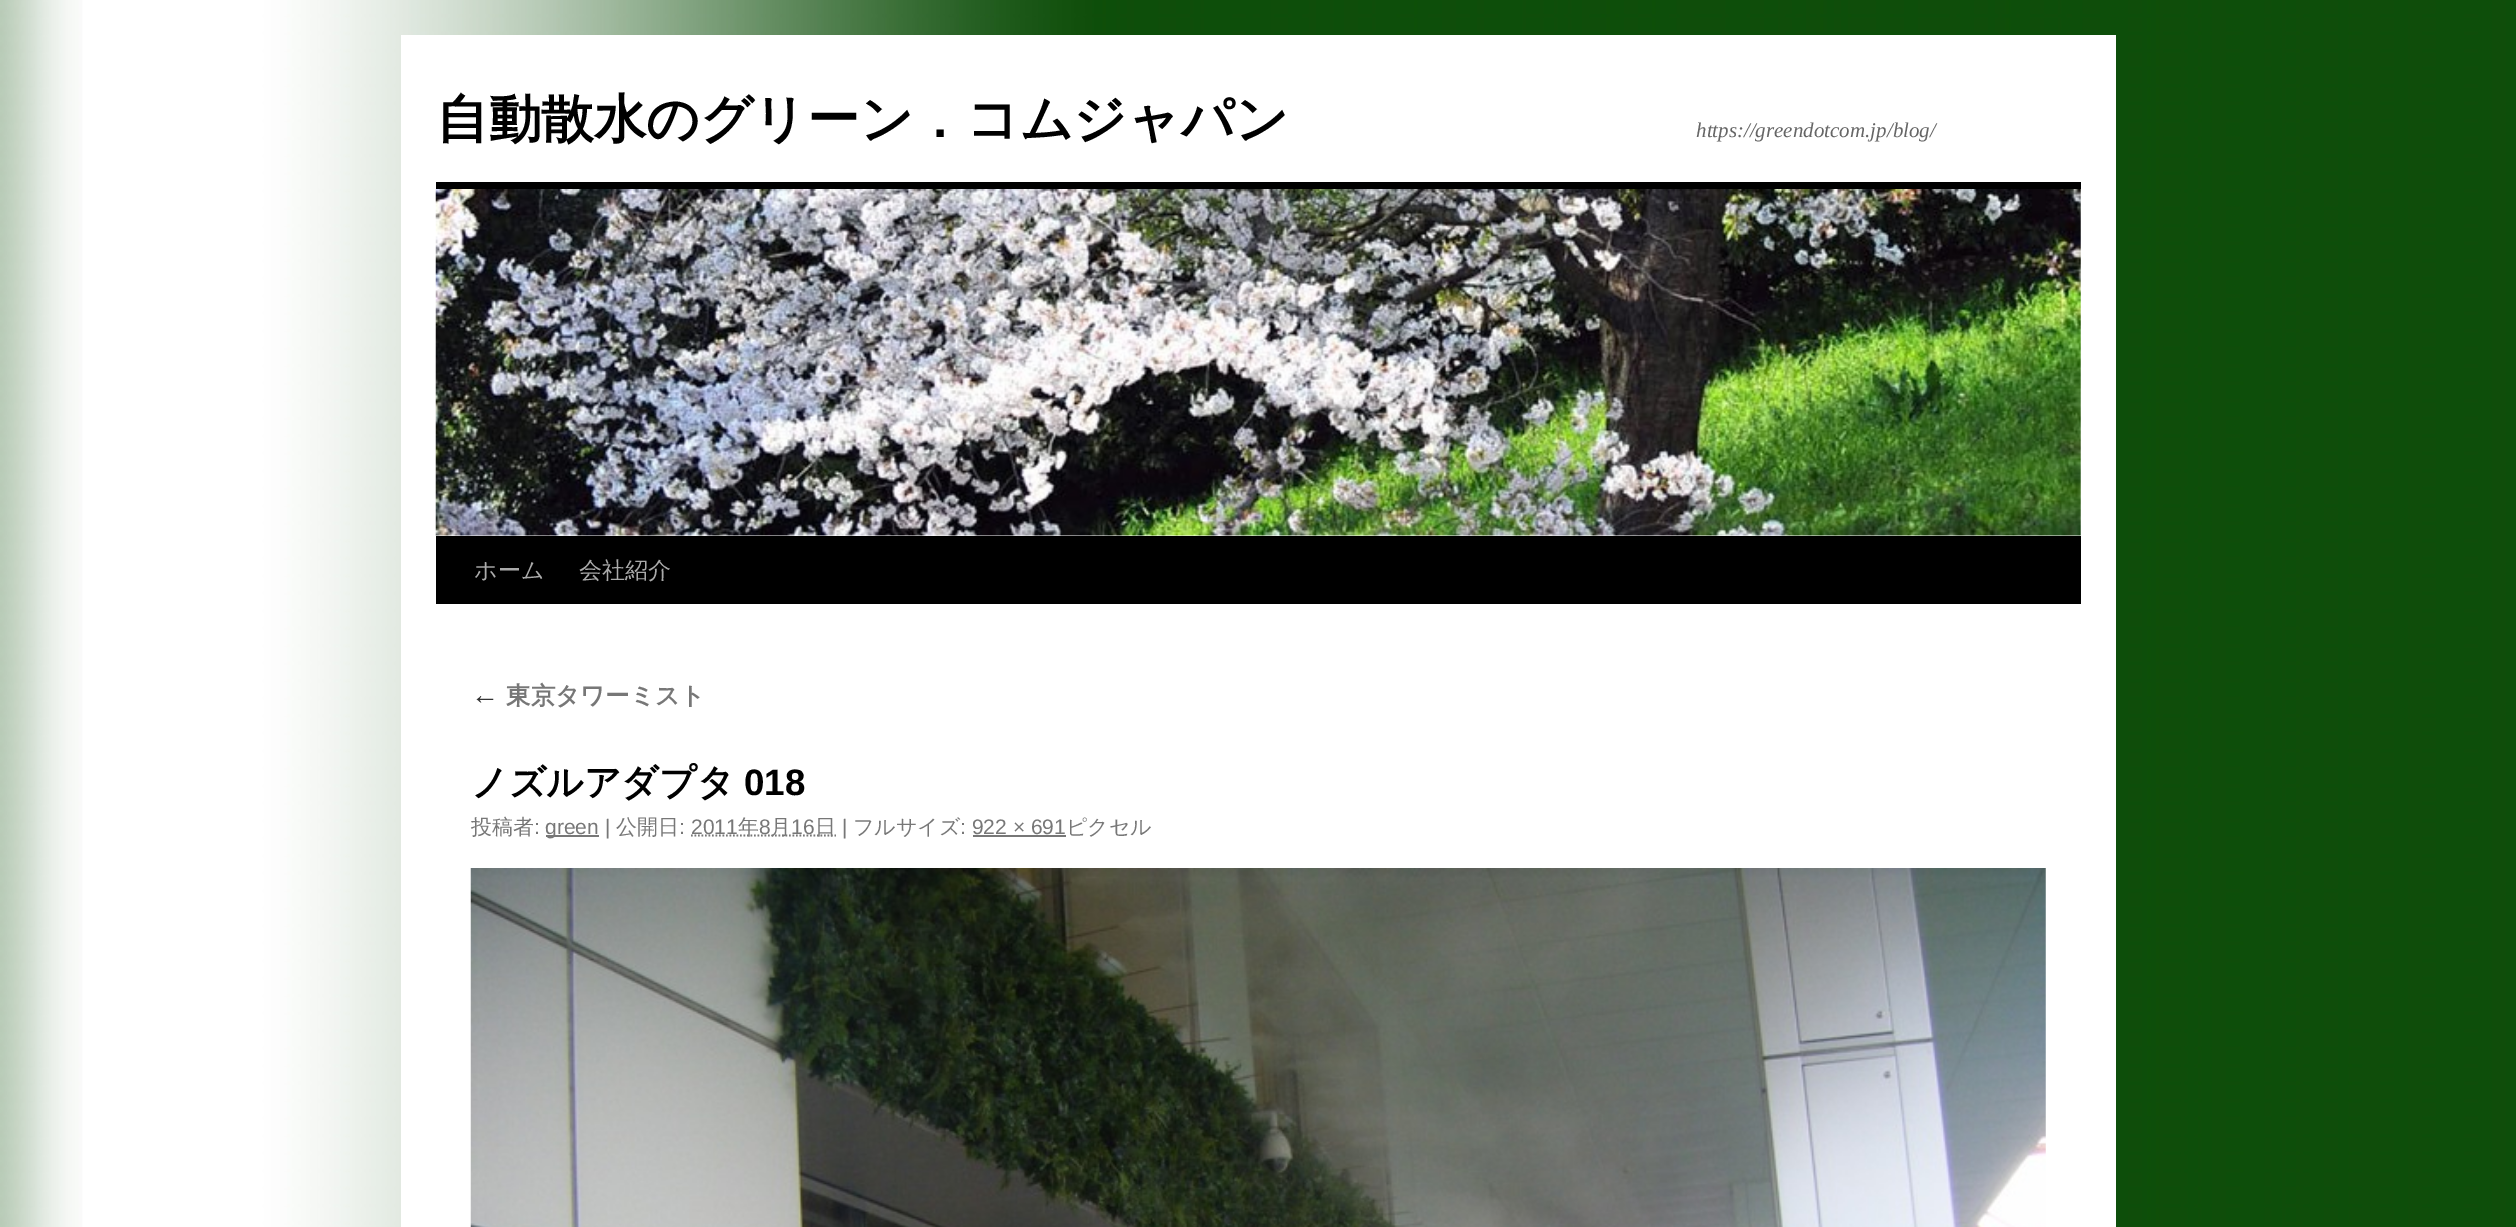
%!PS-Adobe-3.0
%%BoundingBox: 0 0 2516 1227
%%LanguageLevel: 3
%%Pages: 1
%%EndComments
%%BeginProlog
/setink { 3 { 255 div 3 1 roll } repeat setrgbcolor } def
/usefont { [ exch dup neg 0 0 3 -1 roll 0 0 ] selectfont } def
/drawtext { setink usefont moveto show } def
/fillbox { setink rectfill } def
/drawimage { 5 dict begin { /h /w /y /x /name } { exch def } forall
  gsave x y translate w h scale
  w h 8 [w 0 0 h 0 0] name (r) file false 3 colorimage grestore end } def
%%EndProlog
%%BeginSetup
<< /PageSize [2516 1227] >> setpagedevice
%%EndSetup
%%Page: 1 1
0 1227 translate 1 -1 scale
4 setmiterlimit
0 0 2516 1227 255 255 255 fillbox
(assets/img1.rgb) 0 0 2516 1227 drawimage
401 35 1715 1192 255 255 255 fillbox
(自動散水のグリーン．コムジャパン) 436 137 /WenQuanYiZenHei-Bold 52.5 0 0 0 drawtext
(https://greendotcom.jp/blog/) 1696 137 /LiberationSerif-Italic 21 102 102 102 drawtext
436 182 1645 7 0 0 0 fillbox
436 536 1645 68 0 0 0 fillbox
(assets/img2.rgb) 435 189 1646 347 drawimage
(ホーム) 474 578 /WenQuanYiZenHei-Medium 23 170 170 170 drawtext
(会社紹介) 579 578 /WenQuanYiZenHei-Medium 23 170 170 170 drawtext
(←) 471 704 /LiberationSerif-Italic 28 51 51 51 drawtext
(東京タワーミスト) 506 704 /WenQuanYiZenHei-Bold 24.5 119 119 119 drawtext
(ノズルアダプタ) 471 795 /WenQuanYiZenHei-Bold 36.75 0 0 0 drawtext
(018) 744 795 /LiberationSans-Bold 36.75 0 0 0 drawtext
(投稿者) 471 834 /WenQuanYiZenHei-Medium 21 119 119 119 drawtext
(:) 534 834 /LiberationSans-Regular 21 119 119 119 drawtext
546 835 53 2 119 119 119 fillbox
(green |) 545 834 /LiberationSans-Regular 21 119 119 119 drawtext
(公開日) 616 834 /WenQuanYiZenHei-Medium 21 119 119 119 drawtext
(:) 679 834 /LiberationSans-Regular 21 119 119 119 drawtext
1.8 setlinewidth
[1.75 1.75] 0 setdash
691 835.5 moveto 836 835.5 lineto stroke
(2011) 691 834 /LiberationSans-Regular 21 119 119 119 drawtext
(年) 738 834 /WenQuanYiZenHei-Medium 21 119 119 119 drawtext
(8) 759 834 /LiberationSans-Regular 21 119 119 119 drawtext
(月) 770 834 /WenQuanYiZenHei-Medium 21 119 119 119 drawtext
(16) 791 834 /LiberationSans-Regular 21 119 119 119 drawtext
(日) 815 834 /WenQuanYiZenHei-Medium 21 119 119 119 drawtext
(|) 842 834 /LiberationSans-Regular 21 119 119 119 drawtext
(フルサイズ) 853 834 /WenQuanYiZenHei-Medium 21 119 119 119 drawtext
(: 922 × 691) 960 834 /LiberationSans-Regular 21 119 119 119 drawtext
(ピクセル) 1066 834 /WenQuanYiZenHei-Medium 21 119 119 119 drawtext
973 835 93 2 119 119 119 fillbox
(assets/img3.rgb) 470 868 1576 359 drawimage
showpage
%%EOF
